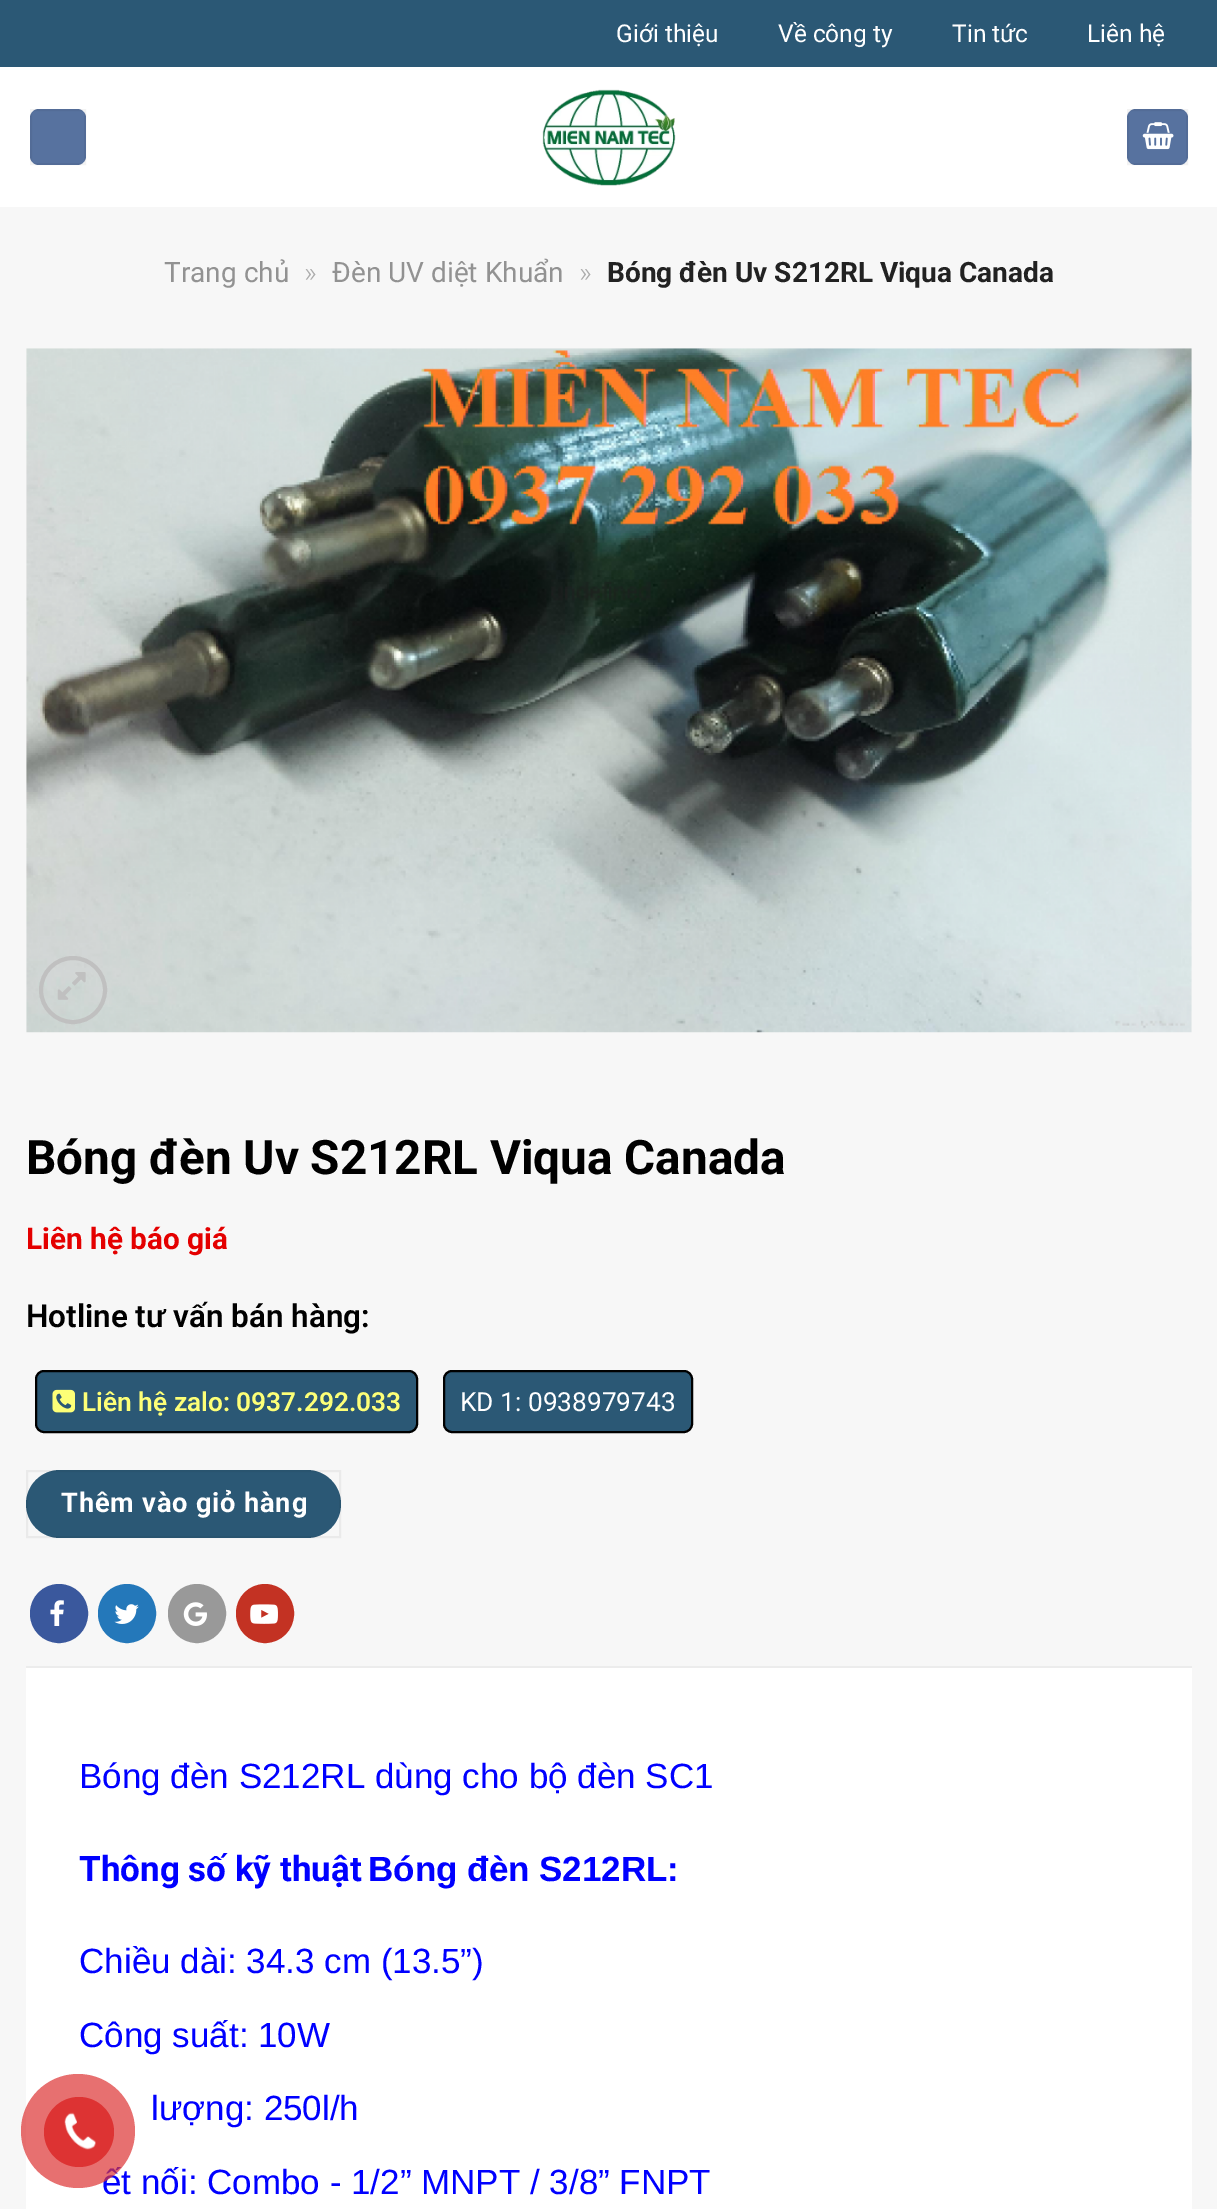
%!PS-Adobe-3.0
%%BoundingBox: 0 0 1217 2209
%%LanguageLevel: 3
%%Pages: 1
%%EndComments
%%BeginProlog
/setink { 3 { 255 div 3 1 roll } repeat setrgbcolor } def
/usefont { [ exch dup neg 0 0 3 -1 roll 0 0 ] selectfont } def
/drawtext { setink usefont moveto show } def
/fillbox { setink rectfill } def
/setalpha { dup .setfillconstantalpha .setstrokeconstantalpha } def
/disc { newpath 0 360 arc closepath } def
/rrect { 5 dict begin { /r /h /w /y /x } { exch def } forall
  x r add y moveto x w add y 2 copy h add r arct x w add y h add x 1 index r arct
  x y h add x y r arct x y 2 copy exch w add exch r arct closepath end } def
/drawimage { 5 dict begin { /h /w /y /x /name } { exch def } forall
  gsave x y translate w h scale
  w h 8 [w 0 0 h 0 0] name (r) file false 3 colorimage grestore end } def
%%EndProlog
%%BeginSetup
<< /PageSize [1217 2209] /PageUsesTransparency true >> setpagedevice
%%EndSetup
%%Page: 1 1
0 .pushpdf14devicefilter
0 2209 translate 1 -1 scale
4 setmiterlimit
0 0 1217 2209 247 247 247 fillbox
0 0 1217 67 43 88 117 fillbox
(Giới thiệu) 616 42 /Roboto-Regular 24.5 255 255 255 drawtext
(Về công ty) 778 42 /Roboto-Regular 24.5 255 255 255 drawtext
(Tin tức) 952 42 /Roboto-Regular 24.5 255 255 255 drawtext
(Liên hệ) 1087 42 /Roboto-Regular 24.5 255 255 255 drawtext
0 67 1217 140 255 255 255 fillbox
87 114 159 setink
30 109 56 56 9 rrect fill
0.05 setalpha
0 0 0 setink
2 setlinewidth
31 110 54 54 rectstroke
1 setalpha
(assets/img1.rgb) 542 89 134 97 drawimage
87 114 159 setink
1127 109 61 56 9 rrect fill
0.05 setalpha
0 0 0 setink
1128 110 59 54 rectstroke
1 setalpha
(assets/img2.rgb) 1142 122 32 28 drawimage
(Trang chủ) 164 282 /Roboto-Regular 28 146 146 146 drawtext
(») 304 282 /Roboto-Light 28 172 172 172 drawtext
(Đèn UV diệt Khuẩn) 332 282 /Roboto-Regular 28 146 146 146 drawtext
(») 579 282 /Roboto-Light 28 172 172 172 drawtext
(Bóng đèn Uv S212RL Viqua Canada) 607 282 /Roboto-Bold 28 34 34 34 drawtext
(assets/img3.rgb) 26 348 1166 685 drawimage
192 192 192 setink
4 setlinewidth
73 990 32 disc stroke
(assets/img4.rgb) 57 972 29 28 drawimage
(Bóng đèn Uv S212RL Viqua Canada) 26 1174 /Roboto-Bold 47.6 0 0 0 drawtext
(Liên hệ báo giá) 26 1249 /Roboto-Bold 29.75 228 0 0 drawtext
(Hotline tư vấn bán hàng:) 26 1327 /Roboto-SemiBold 31.5 0 0 0 drawtext
43 88 117 setink
36 1371 381 61 8 rrect gsave fill grestore
0 0 0 setink
2 setlinewidth
stroke
(assets/img5.rgb) 52 1389 23 24 drawimage
(Liên hệ zalo: 0937.292.033) 82 1411 /Roboto-SemiBold 26.25 253 255 119 drawtext
43 88 117 setink
444 1371 248 61 8 rrect gsave fill grestore
0 0 0 setink
stroke
(KD 1: 0938979743) 460 1411 /Roboto-Regular 26.25 255 255 255 drawtext
43 88 117 setink
26 1470 315 68 34 rrect fill
0.05 setalpha
0 0 0 setink
27 1471 313 66 rectstroke
/Roboto-Bold 27.25 usefont
1 setalpha
255 255 255 setink
61 1512 moveto 0.8 0 (Thêm vào giỏ hàng) ashow
58 88 157 setink
31 1585 56 57 28 rrect gsave fill grestore
stroke
(assets/img6.rgb) 50 1600 14 26 drawimage
36 120 186 setink
99 1585 56 57 28 rrect gsave fill grestore
stroke
(assets/img7.rgb) 114 1604 25 20 drawimage
153 153 153 setink
169 1585 56 57 28 rrect gsave fill grestore
stroke
(assets/img8.rgb) 183 1602 24 24 drawimage
195 50 35 setink
237 1585 56 57 28 rrect gsave fill grestore
stroke
(assets/img9.rgb) 250 1604 28 20 drawimage
26 1668 1166 541 255 255 255 fillbox
26 1666 1166 2 236 236 236 fillbox
(Bóng đèn S212RL dùng cho bộ đèn SC1) 79 1788 /LiberationSans-Regular 35 0 0 255 drawtext
(Thông số kỹ thuật) 79 1881 /Roboto-Bold 35 0 0 255 drawtext
(Bóng đèn S212RL:) 368 1881 /LiberationSans-Bold 35 0 0 255 drawtext
(Chiều dài: 34.3 cm \(13.5”\)) 79 1973 /LiberationSans-Regular 35 0 0 255 drawtext
(Công suất: 10W) 79 2047 /LiberationSans-Regular 35 0 0 255 drawtext
(lượng: 250l/h) 151 2120 /LiberationSans-Regular 35 0 0 255 drawtext
(ết nối: Combo - 1/2” MNPT / 3/8” FNPT) 102 2194 /LiberationSans-Regular 35 0 0 255 drawtext
0.7 setalpha
221 51 51 setink
78 2131 57 disc fill
1 setalpha
79 2132 35 disc fill
(assets/img10.rgb) 64 2112 32 38 drawimage
.poppdf14devicefilter showpage
%%EOF
